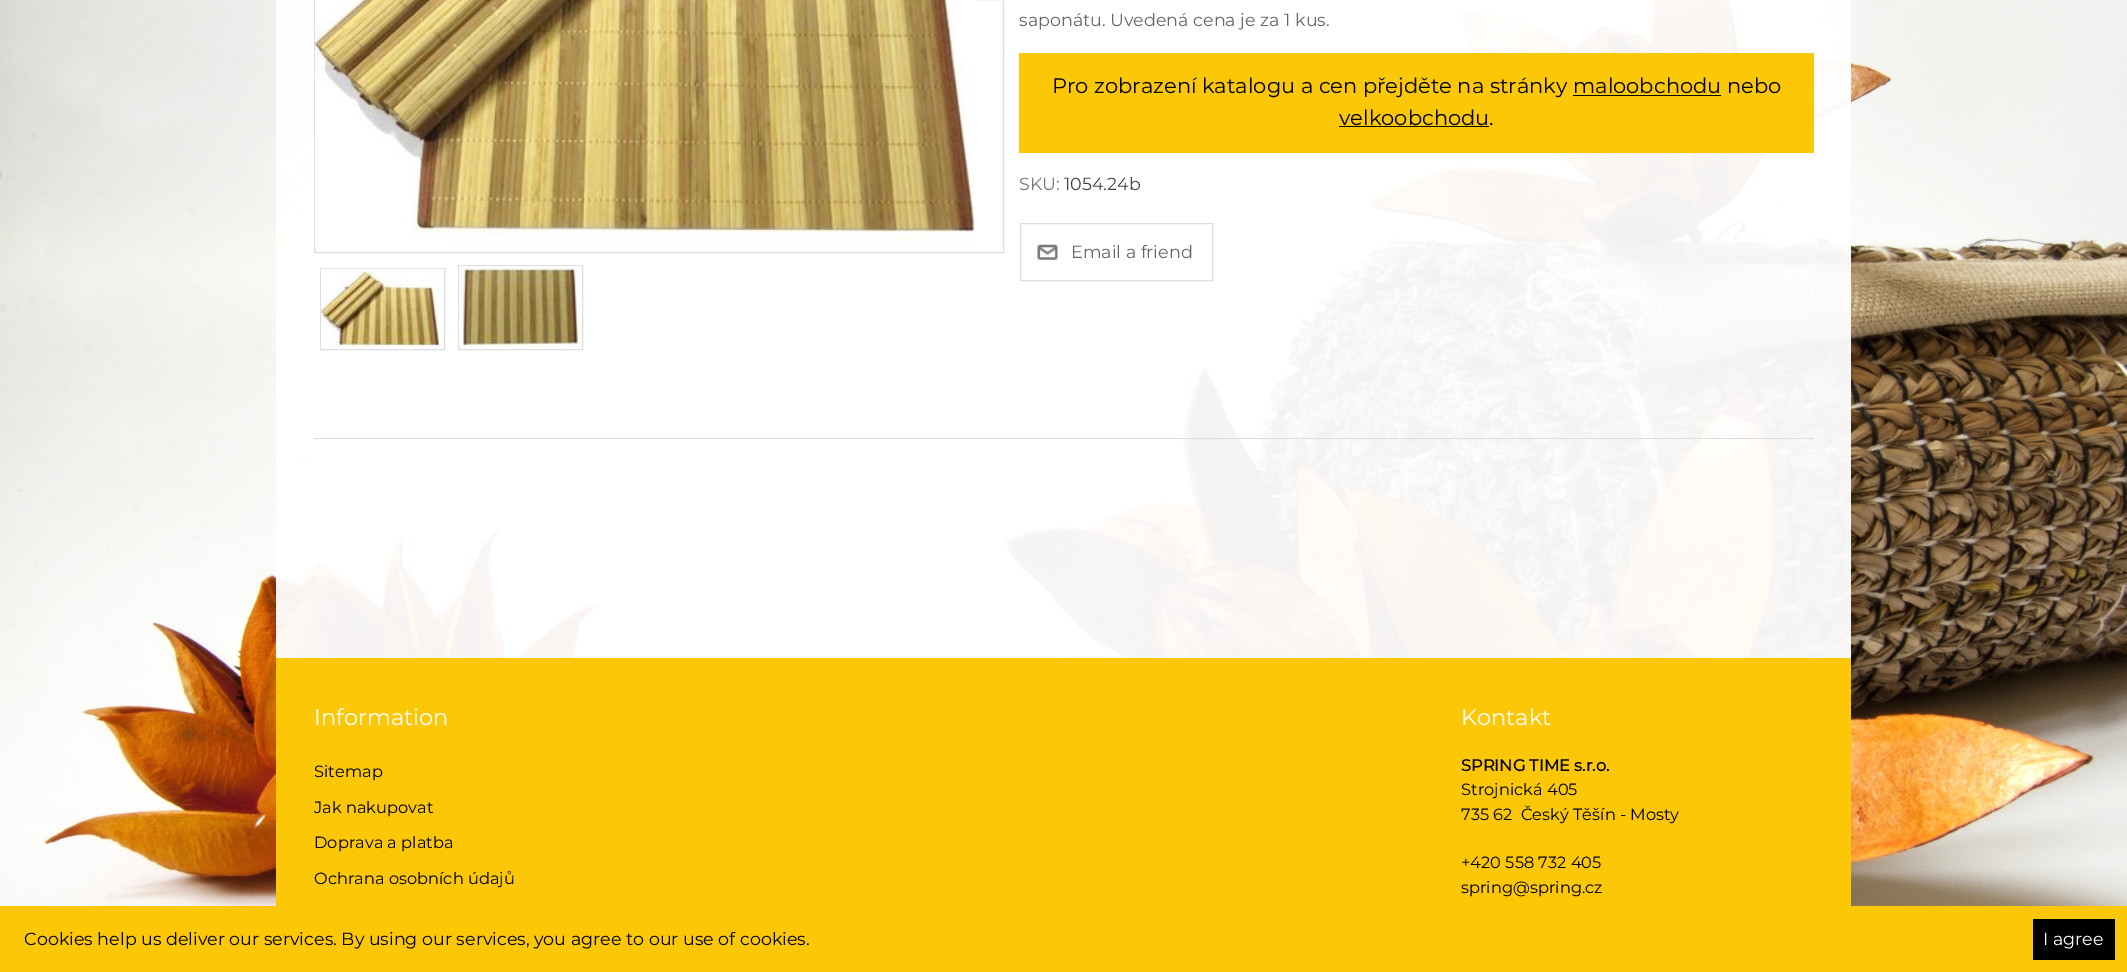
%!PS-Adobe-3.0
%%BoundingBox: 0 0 2127 972
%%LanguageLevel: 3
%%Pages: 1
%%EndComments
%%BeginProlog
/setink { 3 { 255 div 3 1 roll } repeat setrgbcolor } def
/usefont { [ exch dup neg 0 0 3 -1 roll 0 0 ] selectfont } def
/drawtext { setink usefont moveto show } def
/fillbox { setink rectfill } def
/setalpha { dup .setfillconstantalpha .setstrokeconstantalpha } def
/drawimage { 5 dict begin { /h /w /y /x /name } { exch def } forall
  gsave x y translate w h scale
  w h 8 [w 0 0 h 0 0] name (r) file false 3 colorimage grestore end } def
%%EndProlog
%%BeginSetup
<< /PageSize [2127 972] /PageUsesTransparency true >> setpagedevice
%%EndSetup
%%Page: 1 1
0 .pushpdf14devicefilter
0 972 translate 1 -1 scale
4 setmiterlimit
0 0 2127 972 255 255 255 fillbox
(assets/img1.rgb) 0 0 2127 906 drawimage
0.95 setalpha
276 0 1575 658 255 255 255 fillbox
1 setalpha
314 438 1500 1 221 221 221 fillbox
314.5 -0.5 689 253 rectstroke
(assets/img2.rgb) 315 0 661 247 drawimage
320.5 268.5 124 81 rectstroke
(assets/img3.rgb) 321 268 123 80 drawimage
458.5 265.5 124 84 rectstroke
(assets/img4.rgb) 459 266 122 80 drawimage
(saponátu. Uvedená cena je za 1 kus.) 1019 26 /Montserrat-Regular 17.5 102 102 102 drawtext
1019 53 795 100 251 199 7 fillbox
(Pro zobrazení katalogu a cen přejděte na stránky maloobchodu nebo) 1052 93 /Montserrat-Regular 21 0 0 0 drawtext
1573 95 148 1 0 0 0 fillbox
(velkoobchodu.) 1339 125 /Montserrat-Regular 21 0 0 0 drawtext
1339 126 150 1 0 0 0 fillbox
(SKU:) 1019 190 /Montserrat-Regular 17.5 119 119 119 drawtext
(1054.24b) 1064 190 /Montserrat-Regular 17.5 68 68 68 drawtext
(assets/img5.rgb) 1037 244 21 16 drawimage
221 221 221 setink
1020.5 223.5 192 57 rectstroke
(Email a friend) 1071 258 /Montserrat-Regular 17.5 102 102 102 drawtext
276 658 1575 248 251 199 7 fillbox
(Information) 314 725 /Montserrat-Regular 22.5 255 255 255 drawtext
(Sitemap) 314 777 /Montserrat-Regular 16.25 0 0 0 drawtext
(Jak nakupovat) 314 813 /Montserrat-Regular 16.25 0 0 0 drawtext
(Doprava a platba) 314 848 /Montserrat-Regular 16.25 0 0 0 drawtext
(Ochrana osobních údajů) 314 884 /Montserrat-Regular 16.25 0 0 0 drawtext
(Kontakt) 1461 725 /Montserrat-Regular 22.5 255 255 255 drawtext
(SPRING TIME s.r.o.) 1461 771 /Montserrat-Bold 16.25 0 0 0 drawtext
(Strojnická 405) 1461 795 /Montserrat-Regular 16.25 0 0 0 drawtext
(735 62  Český Těšín - Mosty) 1461 820 /Montserrat-Regular 16.25 0 0 0 drawtext
(+420 558 732 405) 1461 868 /Montserrat-Regular 16.25 0 0 0 drawtext
(spring@spring.cz) 1461 893 /Montserrat-Regular 16.25 0 0 0 drawtext
0 906 2127 66 251 199 7 fillbox
(Cookies help us deliver our services. By using our services, you agree to our use of cookies.) 24 945 /Montserrat-Regular 17.5 0 0 0 drawtext
2033 919 82 41 0 0 0 fillbox
(I agree) 2043 945 /Montserrat-Regular 17.5 255 255 255 drawtext
.poppdf14devicefilter showpage
%%EOF
